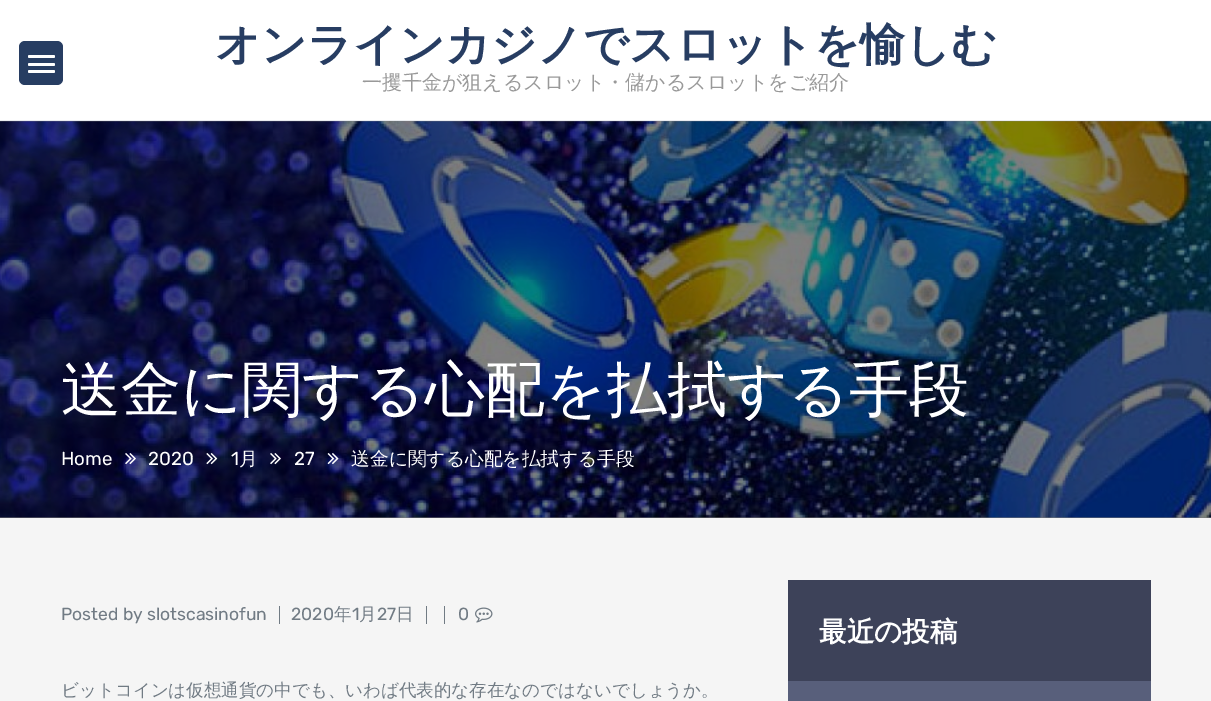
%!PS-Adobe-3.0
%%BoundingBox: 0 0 1211 701
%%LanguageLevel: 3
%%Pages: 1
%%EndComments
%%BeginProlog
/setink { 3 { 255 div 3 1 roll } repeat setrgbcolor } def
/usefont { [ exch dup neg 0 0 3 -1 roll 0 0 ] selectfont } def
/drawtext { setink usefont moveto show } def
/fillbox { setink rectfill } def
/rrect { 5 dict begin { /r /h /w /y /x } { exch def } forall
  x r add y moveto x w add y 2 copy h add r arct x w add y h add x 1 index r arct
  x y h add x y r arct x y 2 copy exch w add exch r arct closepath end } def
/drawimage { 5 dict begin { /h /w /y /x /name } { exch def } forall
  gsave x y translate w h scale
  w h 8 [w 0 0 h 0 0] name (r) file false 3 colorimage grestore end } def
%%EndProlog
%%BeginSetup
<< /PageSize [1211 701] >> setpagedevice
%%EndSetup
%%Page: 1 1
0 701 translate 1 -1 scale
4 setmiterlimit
0 0 1211 701 245 245 245 fillbox
0 121 1211 397 123 123 123 fillbox
0 0 1211 120 255 255 255 fillbox
39 61 98 setink
19 41 44 44 6 rrect fill
255 255 255 setink
28 63 27 3 1.5 rrect fill
28 55 27 3 1.5 rrect fill
28 70 27 3 1.5 rrect fill
0 120 1211 1 233 235 239 fillbox
(オンラインカジノでスロットを愉しむ) 215 60 /WenQuanYiZenHei-Bold 45 39 61 98 drawtext
(一攫千金が狙えるスロット・儲かるスロットをご紹介) 362 89 /WenQuanYiZenHei-Medium 20 153 153 153 drawtext
(assets/img1.rgb) 0 121 1211 397 drawimage
(送金に関する心配を払拭する手段) 61 410 /WenQuanYiZenHei-Medium 60 255 255 255 drawtext
(Home) 61 465 /Rubik-Light 18.75 255 255 255 drawtext
(assets/img2.rgb) 125 453 11 12 drawimage
(2020) 148 465 /Rubik-Light 18.75 255 255 255 drawtext
(assets/img3.rgb) 206 453 12 12 drawimage
(1) 231 465 /Rubik-Light 18.75 255 255 255 drawtext
(月) 239 465 /WenQuanYiZenHei-Medium 18.75 255 255 255 drawtext
(assets/img4.rgb) 270 453 11 12 drawimage
(27) 294 465 /Rubik-Light 18.75 255 255 255 drawtext
(assets/img5.rgb) 327 453 12 12 drawimage
(送金に関する心配を払拭する手段) 351 465 /WenQuanYiZenHei-Medium 18.75 255 255 255 drawtext
(Posted by slotscasinofun) 61 620 /Rubik-Light 17.5 113 123 132 drawtext
279 606 1 18 113 123 132 fillbox
(2020) 291 620 /Rubik-Light 17.5 113 123 132 drawtext
(年) 334 620 /WenQuanYiZenHei-Medium 17.5 113 123 132 drawtext
(1) 352 620 /Rubik-Light 17.5 113 123 132 drawtext
(月) 359 620 /WenQuanYiZenHei-Medium 17.5 113 123 132 drawtext
(27) 377 620 /Rubik-Light 17.5 113 123 132 drawtext
(日) 396 620 /WenQuanYiZenHei-Medium 17.5 113 123 132 drawtext
426 606 1 18 113 123 132 fillbox
444 606 1 18 113 123 132 fillbox
(0) 458 620 /Rubik-Light 17.5 113 123 132 drawtext
(assets/img6.rgb) 475 607 18 16 drawimage
(ビットコインは仮想通貨の中でも、いわば代表的な存在なのではないでしょうか。) 61 696 /WenQuanYiZenHei-Medium 17.5 113 123 132 drawtext
788 580 363 101 61 66 89 fillbox
(最近の投稿) 819 641 /WenQuanYiZenHei-Bold 27.5 255 255 255 drawtext
788 681 363 20 88 95 123 fillbox
showpage
%%EOF
